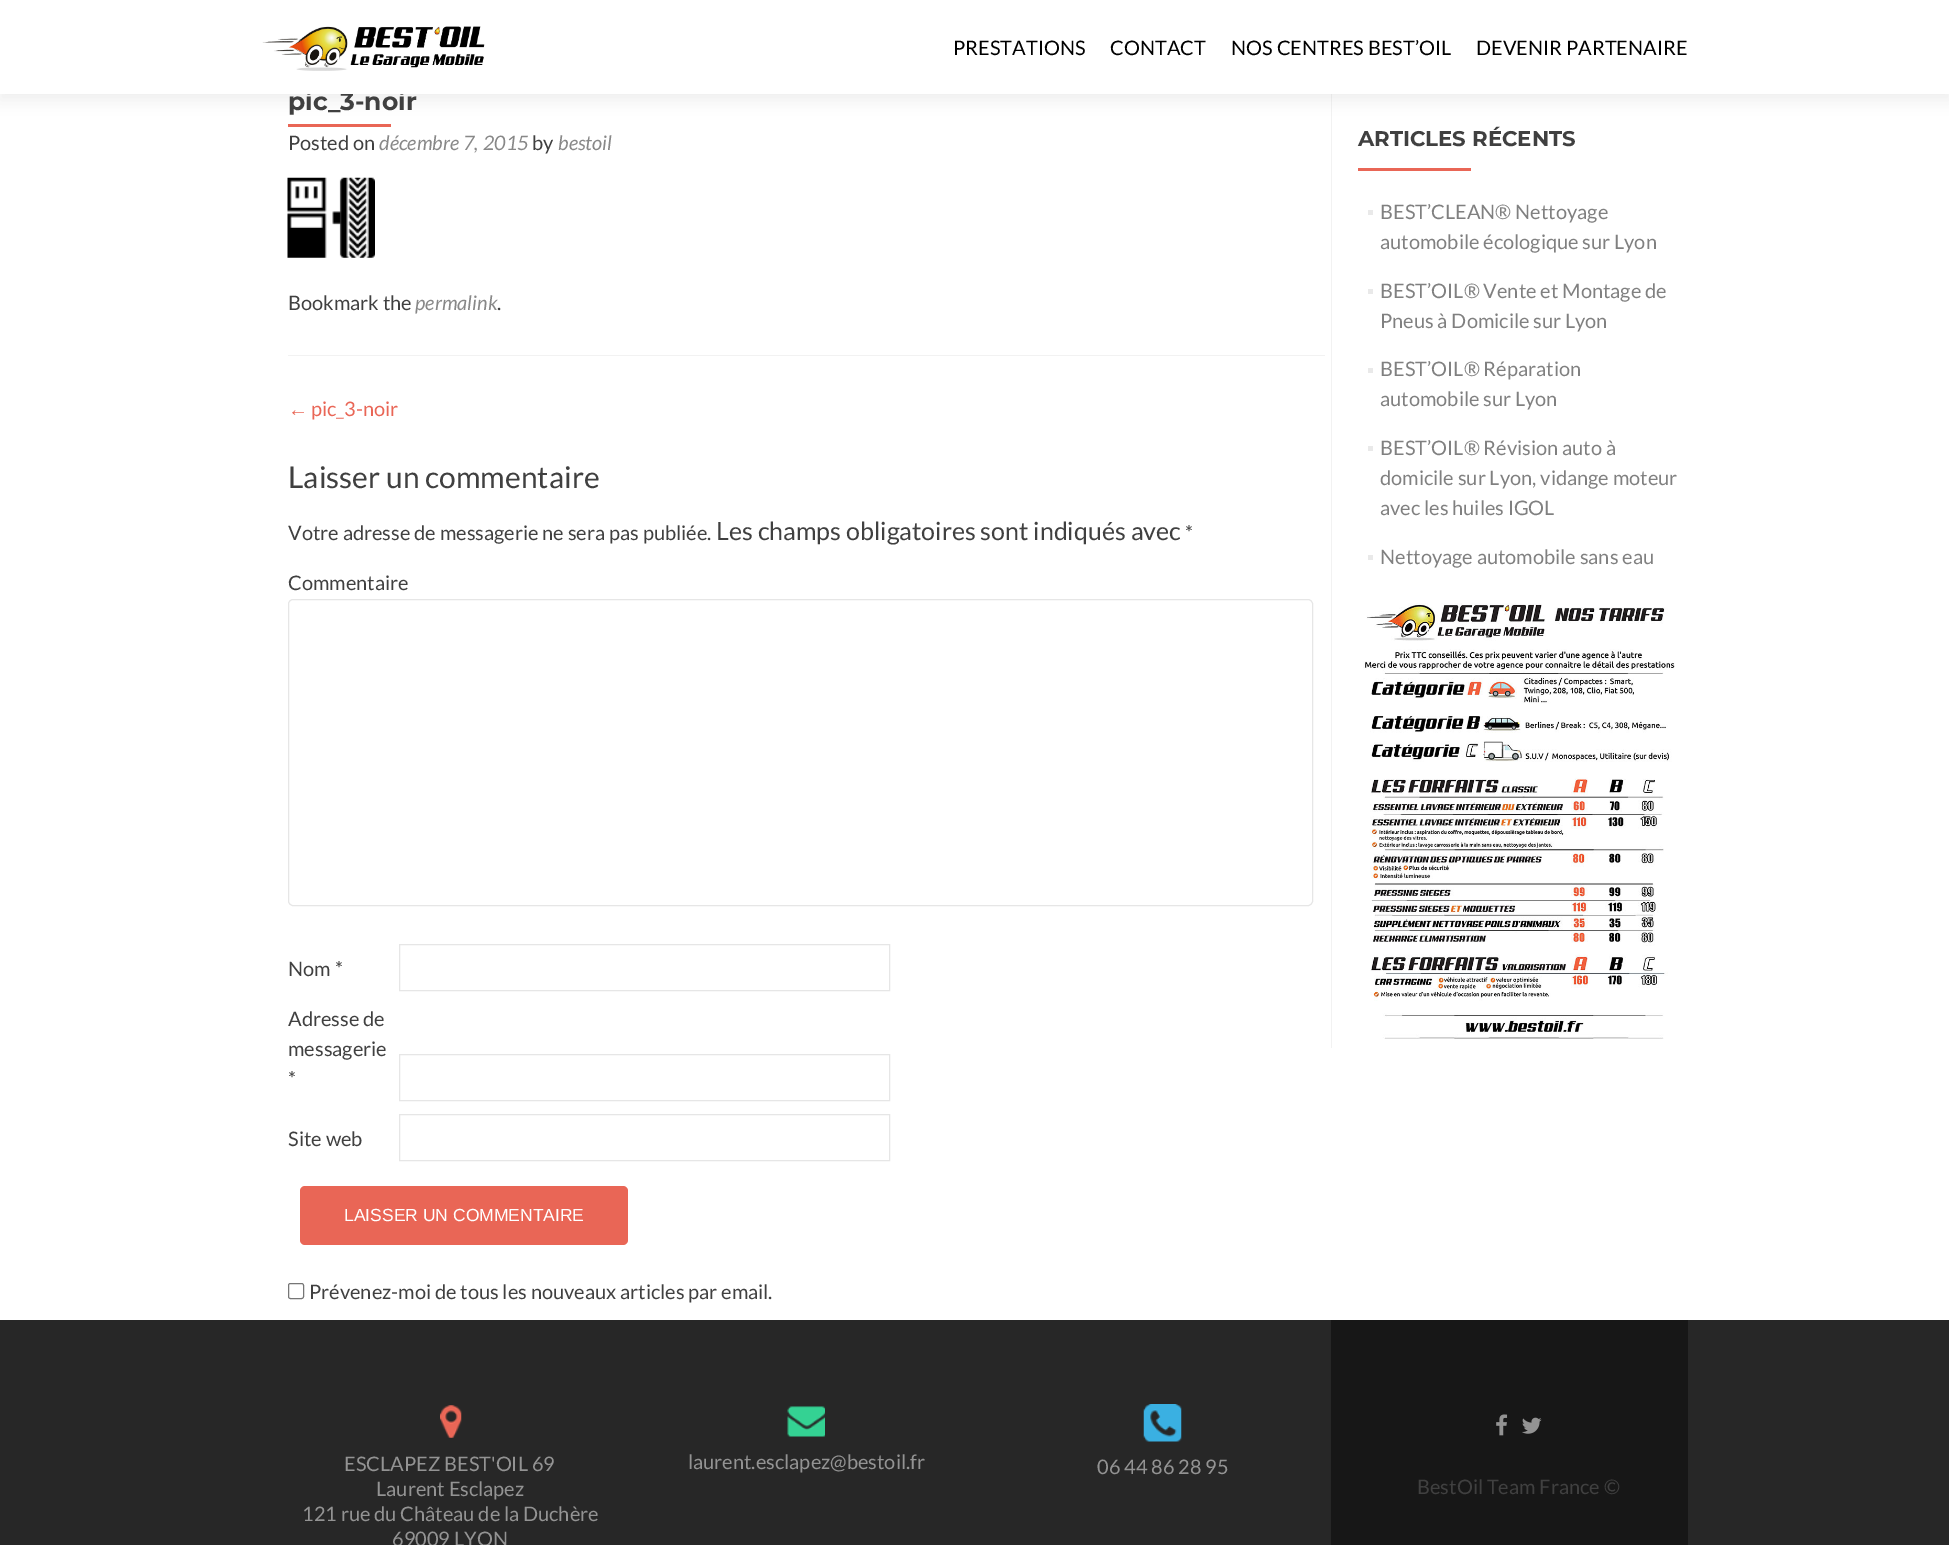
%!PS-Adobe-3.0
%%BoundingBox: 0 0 1949 1545
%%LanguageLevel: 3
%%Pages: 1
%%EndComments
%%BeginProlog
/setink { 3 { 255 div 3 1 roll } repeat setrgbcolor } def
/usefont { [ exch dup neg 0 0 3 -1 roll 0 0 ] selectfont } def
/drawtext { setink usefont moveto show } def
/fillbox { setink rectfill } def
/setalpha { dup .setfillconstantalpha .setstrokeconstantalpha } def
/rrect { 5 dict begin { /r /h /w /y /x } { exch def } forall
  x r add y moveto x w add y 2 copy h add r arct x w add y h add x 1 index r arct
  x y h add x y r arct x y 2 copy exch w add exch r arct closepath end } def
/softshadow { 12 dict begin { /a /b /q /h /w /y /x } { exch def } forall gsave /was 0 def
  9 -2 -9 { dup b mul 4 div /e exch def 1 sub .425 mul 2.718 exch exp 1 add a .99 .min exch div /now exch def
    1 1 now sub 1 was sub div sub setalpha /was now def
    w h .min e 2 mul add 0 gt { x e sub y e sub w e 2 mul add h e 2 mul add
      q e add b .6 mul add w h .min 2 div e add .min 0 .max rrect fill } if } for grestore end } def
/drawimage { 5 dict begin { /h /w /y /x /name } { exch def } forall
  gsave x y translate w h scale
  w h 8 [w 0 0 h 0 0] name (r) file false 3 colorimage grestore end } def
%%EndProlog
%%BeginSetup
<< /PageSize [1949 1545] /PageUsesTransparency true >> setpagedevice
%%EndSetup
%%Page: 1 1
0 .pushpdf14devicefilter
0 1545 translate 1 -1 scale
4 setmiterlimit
0 0 1949 1545 255 255 255 fillbox
1331 88 1 960 242 242 242 fillbox
50 50 50 setink
0 6 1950 94 0 7 0.08 softshadow
(pic_3-noir) 288 110 /Montserrat-Thin 25 64 64 64 drawtext
0 0 1949 94 255 255 255 fillbox
(assets/img1.rgb) 262 26 223 45 drawimage
(PRESTATIONS) 953 55 /Lato-Regular 20 0 0 0 drawtext
(CONTACT) 1110 55 /Lato-Regular 20 0 0 0 drawtext
(NOS CENTRES BEST’OIL) 1231 55 /Lato-Regular 20 0 0 0 drawtext
(DEVENIR PARTENAIRE) 1476 55 /Lato-Regular 20 0 0 0 drawtext
288 355 1037 1 242 242 242 fillbox
288 124 103 3 233 102 86 fillbox
(Posted on) 288 150 /Lato-Regular 20 64 64 64 drawtext
(décembre 7, 2015) 379 150 /Lato-Italic 20 136 136 136 drawtext
(by) 532 150 /Lato-Regular 20 64 64 64 drawtext
(bestoil) 558 150 /Lato-Italic 20 136 136 136 drawtext
(assets/img2.rgb) 287 177 88 81 drawimage
(Bookmark the) 288 310 /Lato-Regular 20 64 64 64 drawtext
(permalink) 415 310 /Lato-Italic 20 136 136 136 drawtext
(.) 497 310 /Lato-Regular 20 64 64 64 drawtext
(←) 288 416 /LiberationSans-Regular 20 233 102 86 drawtext
(pic_3-noir) 311 416 /Lato-Regular 20 233 102 86 drawtext
(Laisser un commentaire) 288 488 /Lato-Regular 30 64 64 64 drawtext
(Votre adresse de messagerie ne sera pas publiée.) 288 540 /Lato-Regular 20 64 64 64 drawtext
(Les champs obligatoires sont indiqués avec) 716 540 /Lato-Regular 25 64 64 64 drawtext
(*) 1185 540 /Lato-Regular 20 64 64 64 drawtext
(Commentaire) 288 590 /Lato-Regular 20 64 64 64 drawtext
230 230 230 setink
288.5 599.5 1024 306 4.5 rrect stroke
(Nom *) 288 976 /Lato-Regular 20 64 64 64 drawtext
230 230 230 setink
399.5 944.5 490 46 rectstroke
(Adresse de) 288 1026 /Lato-Regular 20 64 64 64 drawtext
(messagerie) 288 1056 /Lato-Regular 20 64 64 64 drawtext
(*) 288 1086 /Lato-Regular 20 64 64 64 drawtext
230 230 230 setink
399.5 1054.5 490 46 rectstroke
(Site web) 288 1146 /Lato-Regular 20 64 64 64 drawtext
230 230 230 setink
399.5 1114.5 490 46 rectstroke
233 102 86 setink
300 1186 328 59 5 rrect fill
(LAISSER UN COMMENTAIRE) 344 1221 /LiberationSans-Regular 17.5 255 255 255 drawtext
118 118 118 setink
288.5 1283.5 15 15 2 rrect stroke
(Prévenez-moi de tous les nouveaux articles par email.) 309 1299 /Lato-Regular 20 64 64 64 drawtext
(ARTICLES RÉCENTS) 1358 146 /Montserrat-Thin 21.25 64 64 64 drawtext
1358 168 113 3 233 102 86 fillbox
1368 210 5 5 233 233 233 fillbox
(BEST’CLEAN® Nettoyage) 1380 219 /Lato-Regular 20 128 128 128 drawtext
(automobile écologique sur Lyon) 1380 249 /Lato-Regular 20 128 128 128 drawtext
1368 289 5 5 233 233 233 fillbox
(BEST’OIL® Vente et Montage de) 1380 298 /Lato-Regular 20 128 128 128 drawtext
(Pneus à Domicile sur Lyon) 1380 328 /Lato-Regular 20 128 128 128 drawtext
1368 368 5 5 233 233 233 fillbox
(BEST’OIL® Réparation) 1380 376 /Lato-Regular 20 128 128 128 drawtext
(automobile sur Lyon) 1380 406 /Lato-Regular 20 128 128 128 drawtext
1368 446 5 5 233 233 233 fillbox
(BEST’OIL® Révision auto à) 1380 455 /Lato-Regular 20 128 128 128 drawtext
(domicile sur Lyon, vidange moteur) 1380 485 /Lato-Regular 20 128 128 128 drawtext
(avec les huiles IGOL) 1380 515 /Lato-Regular 20 128 128 128 drawtext
1368 555 5 5 233 233 233 fillbox
(Nettoyage automobile sans eau) 1380 564 /Lato-Regular 20 128 128 128 drawtext
(assets/img3.rgb) 1363 603 312 436 drawimage
0 1320 1949 225 39 39 39 fillbox
(assets/img4.rgb) 440 1405 22 33 drawimage
(ESCLAPEZ BEST'OIL 69) 344 1471 /Lato-Regular 20 147 147 147 drawtext
(Laurent Esclapez) 376 1496 /Lato-Regular 20 147 147 147 drawtext
(121 rue du Château de la Duchère) 302 1521 /Lato-Regular 20 147 147 147 drawtext
(69009 LYON) 392 1546 /Lato-Regular 20 147 147 147 drawtext
(assets/img5.rgb) 787 1406 38 31 drawimage
(laurent.esclapez@bestoil.fr) 688 1469 /Lato-Regular 20 147 147 147 drawtext
(assets/img6.rgb) 1143 1404 39 38 drawimage
(06 44 86 28 95) 1097 1474 /Lato-Regular 20 147 147 147 drawtext
1331 1320 357 225 23 23 23 fillbox
(assets/img7.rgb) 1496 1414 12 22 drawimage
(assets/img8.rgb) 1522 1417 20 17 drawimage
(BestOil Team France ©) 1417 1494 /Lato-Regular 20 64 64 64 drawtext
.poppdf14devicefilter showpage
%%EOF
